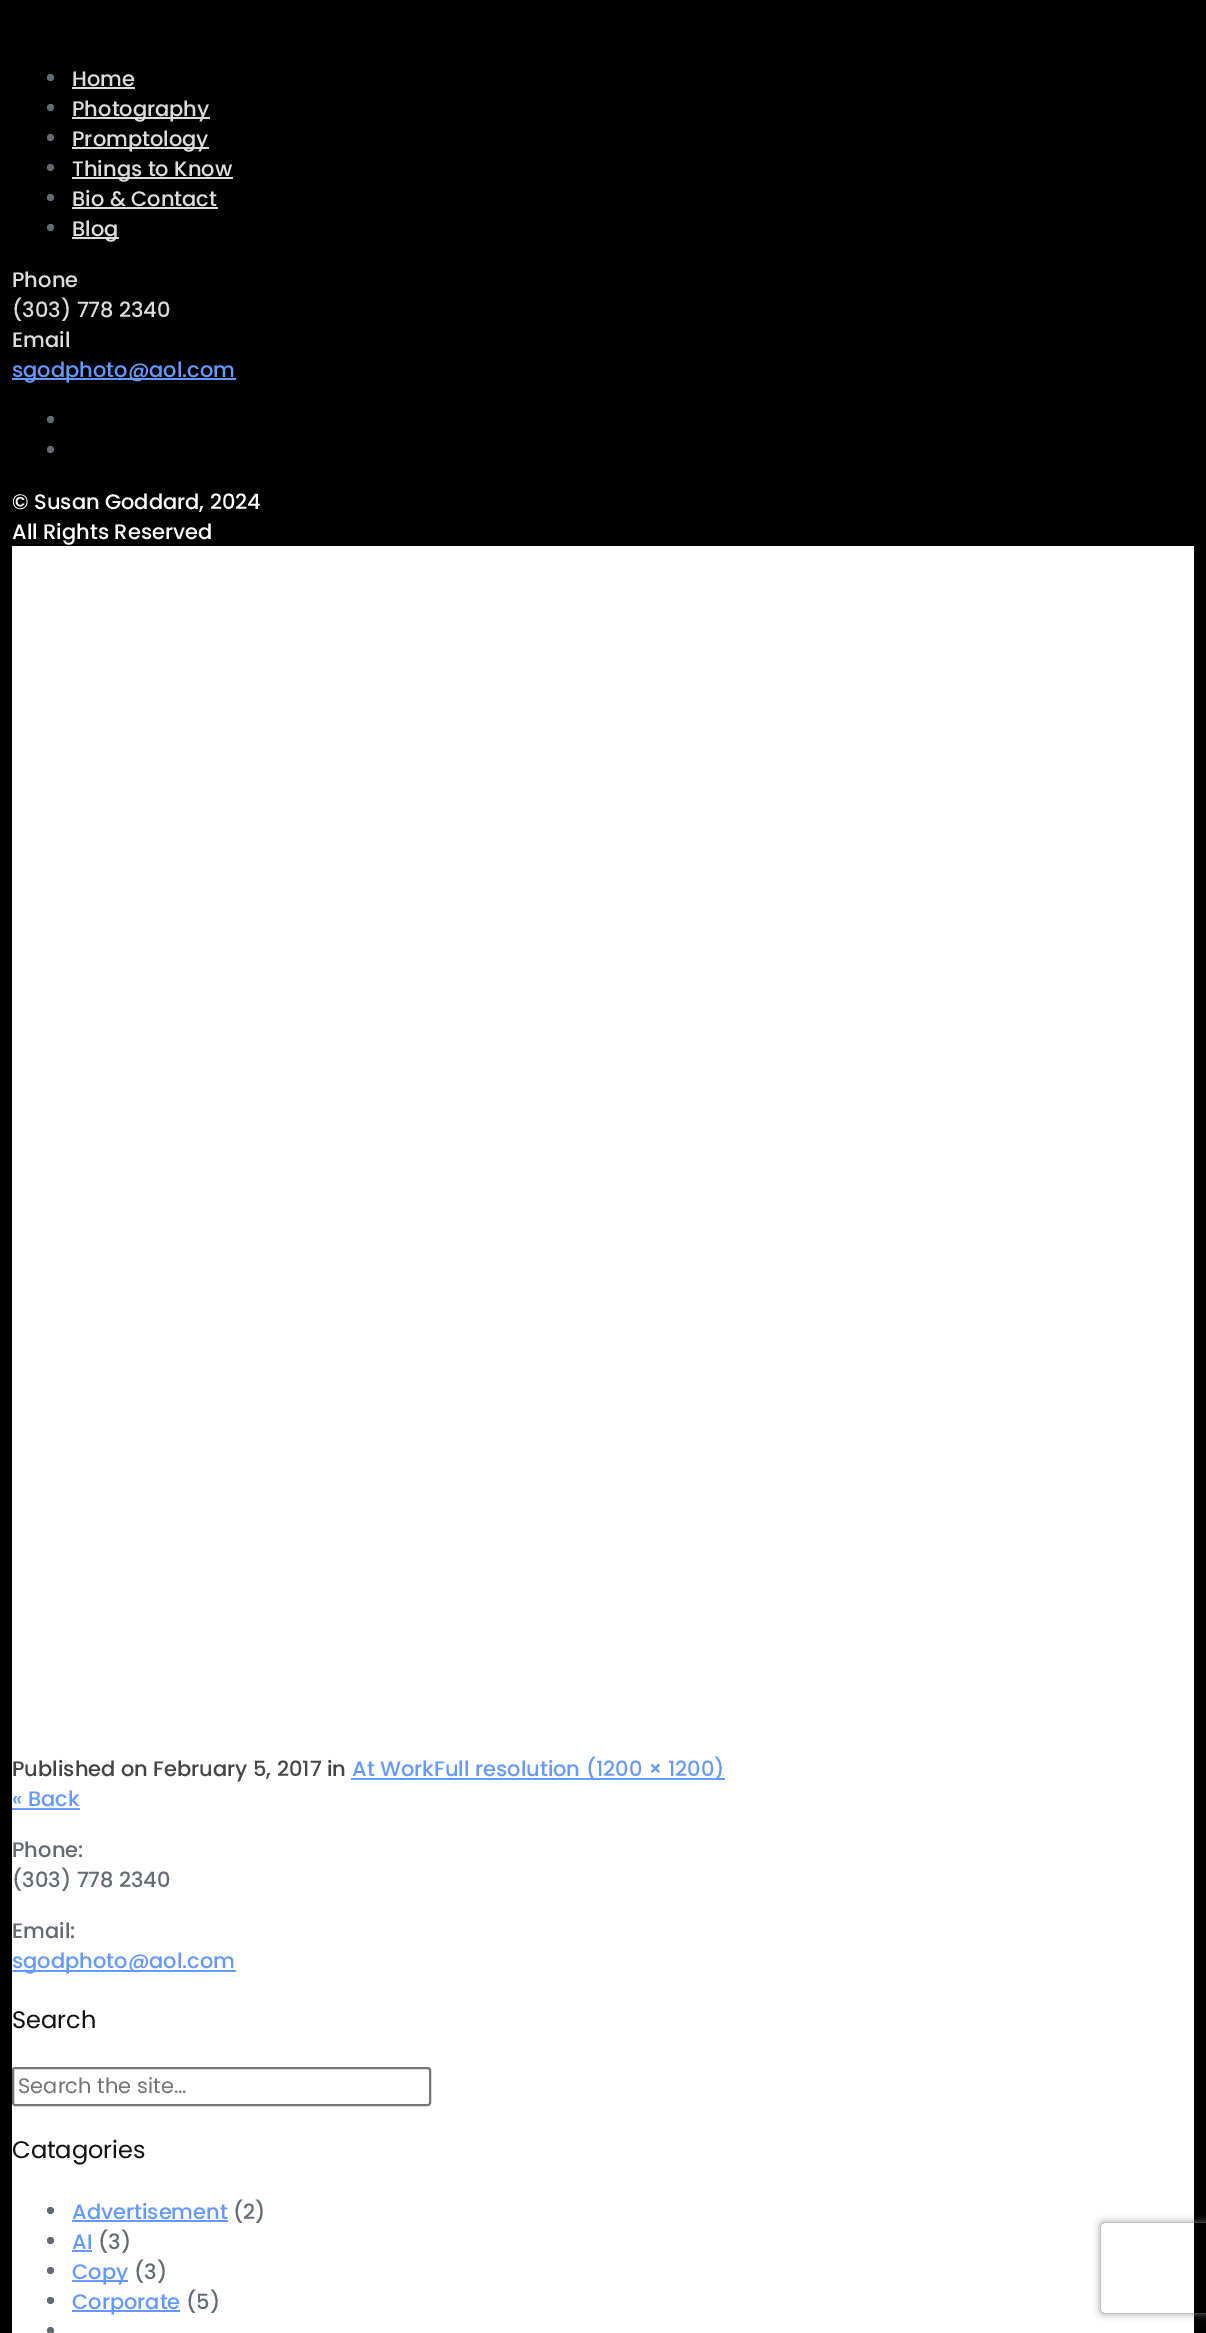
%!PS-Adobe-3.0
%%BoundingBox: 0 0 1206 2333
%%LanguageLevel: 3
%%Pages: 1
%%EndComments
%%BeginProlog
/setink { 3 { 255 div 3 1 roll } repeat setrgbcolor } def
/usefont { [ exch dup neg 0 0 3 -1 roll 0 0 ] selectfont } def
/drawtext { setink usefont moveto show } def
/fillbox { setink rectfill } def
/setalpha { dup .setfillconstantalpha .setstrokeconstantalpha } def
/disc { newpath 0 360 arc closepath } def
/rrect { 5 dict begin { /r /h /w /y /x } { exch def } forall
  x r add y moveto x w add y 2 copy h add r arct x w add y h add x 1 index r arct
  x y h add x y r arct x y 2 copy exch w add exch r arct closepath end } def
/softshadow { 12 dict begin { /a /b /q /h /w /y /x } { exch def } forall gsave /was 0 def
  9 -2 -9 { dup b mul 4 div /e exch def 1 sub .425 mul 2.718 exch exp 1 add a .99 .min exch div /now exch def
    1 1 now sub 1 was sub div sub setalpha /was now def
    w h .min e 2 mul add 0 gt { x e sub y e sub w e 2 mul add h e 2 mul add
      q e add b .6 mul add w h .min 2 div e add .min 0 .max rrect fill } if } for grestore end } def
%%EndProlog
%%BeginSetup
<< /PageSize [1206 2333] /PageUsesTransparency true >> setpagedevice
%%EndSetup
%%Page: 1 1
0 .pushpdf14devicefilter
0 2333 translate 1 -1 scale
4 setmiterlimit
0 0 1206 2333 0 0 0 fillbox
100 106 115 setink
50.5 77.5 3.5 disc fill
(Home) 72 86 /Poppins-Medium 21 221 221 221 drawtext
72 87 63 2 221 221 221 fillbox
100 106 115 setink
50.5 107.5 3.5 disc fill
72 117 138 2 221 221 221 fillbox
(Photography) 72 116 /Poppins-Medium 21 221 221 221 drawtext
100 106 115 setink
50.5 137.5 3.5 disc fill
72 147 137 2 221 221 221 fillbox
(Promptology) 72 146 /Poppins-Medium 21 221 221 221 drawtext
100 106 115 setink
50.5 167.5 3.5 disc fill
72 177 161 2 221 221 221 fillbox
(Things to Know) 72 176 /Poppins-Medium 21 221 221 221 drawtext
100 106 115 setink
50.5 197.5 3.5 disc fill
(Bio & Contact) 72 206 /Poppins-Medium 21 221 221 221 drawtext
72 207 146 2 221 221 221 fillbox
100 106 115 setink
50.5 227.5 3.5 disc fill
72 237 47 2 221 221 221 fillbox
(Blog) 72 236 /Poppins-Medium 21 221 221 221 drawtext
(Phone) 12 287 /Poppins-Medium 21 221 221 221 drawtext
(\(303\) 778 2340) 12 317 /Poppins-Medium 21 221 221 221 drawtext
(Email) 12 347 /Poppins-Medium 21 221 221 221 drawtext
12 378 224 2 102 153 255 fillbox
(sgodphoto@aol.com) 12 377 /Poppins-Medium 21 102 153 255 drawtext
100 106 115 setink
50.5 419.5 3.5 disc fill
50.5 449.5 3.5 disc fill
(© Susan Goddard, 2024) 12 509 /Poppins-Medium 21 255 255 255 drawtext
(All Rights Reserved) 12 539 /Poppins-Medium 21 255 255 255 drawtext
12 546 1182 1787 255 255 255 fillbox
(Published on February 5, 2017 in) 12 1776 /Poppins-Medium 21 68 68 68 drawtext
351 1778 374 2 102 153 255 fillbox
(At WorkFull resolution \(1200 × 1200\)) 352 1776 /Poppins-Medium 21 102 153 255 drawtext
(« Back) 12 1806 /Poppins-Medium 21 102 153 255 drawtext
12 1808 68 2 102 153 255 fillbox
(Phone:) 12 1857 /Poppins-Medium 21 100 106 115 drawtext
(\(303\) 778 2340) 12 1887 /Poppins-Medium 21 100 106 115 drawtext
(Email:) 12 1938 /Poppins-Medium 21 100 106 115 drawtext
12 1970 224 2 102 153 255 fillbox
(sgodphoto@aol.com) 12 1968 /Poppins-Medium 21 102 153 255 drawtext
(Search) 12 2028 /Poppins-Regular 24 17 17 17 drawtext
118 118 118 setink
2 setlinewidth
13 2068 417 37 2 rrect stroke
(Search the site...) 18 2093 /Poppins-Regular 21 117 117 117 drawtext
(Catagories) 12 2158 /Poppins-Regular 24 17 17 17 drawtext
100 106 115 setink
50.5 2210.5 3.5 disc fill
(Advertisement) 72 2219 /Poppins-Medium 21 102 153 255 drawtext
72 2220 156 2 102 153 255 fillbox
(\(2\)) 233 2219 /Poppins-Medium 21 100 106 115 drawtext
50.5 2240.5 3.5 disc fill
(AI) 72 2249 /Poppins-Medium 21 102 153 255 drawtext
72 2250 20 2 102 153 255 fillbox
(\(3\)) 98 2249 /Poppins-Medium 21 100 106 115 drawtext
50.5 2270.5 3.5 disc fill
72 2280 56 2 102 153 255 fillbox
(Copy) 72 2279 /Poppins-Medium 21 102 153 255 drawtext
(\(3\)) 134 2279 /Poppins-Medium 21 100 106 115 drawtext
50.5 2300.5 3.5 disc fill
72 2310 108 2 102 153 255 fillbox
(Corporate) 72 2309 /Poppins-Medium 21 102 153 255 drawtext
(\(5\)) 186 2309 /Poppins-Medium 21 100 106 115 drawtext
50.5 2330.5 3.5 disc fill
gsave
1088 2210 moveto 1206 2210 lineto 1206 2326 lineto 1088 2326 lineto closepath 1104 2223 moveto 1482 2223 lineto 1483.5 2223 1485 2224.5 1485 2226 curveto 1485 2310 lineto 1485 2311.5 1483.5 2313 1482 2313 curveto 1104 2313 lineto 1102.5 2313 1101 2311.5 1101 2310 curveto 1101 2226 lineto 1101 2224.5 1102.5 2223 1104 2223 curveto closepath eoclip newpath
128 128 128 setink
1101 2223 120 90 3 4 1 softshadow
grestore
.poppdf14devicefilter showpage
%%EOF
